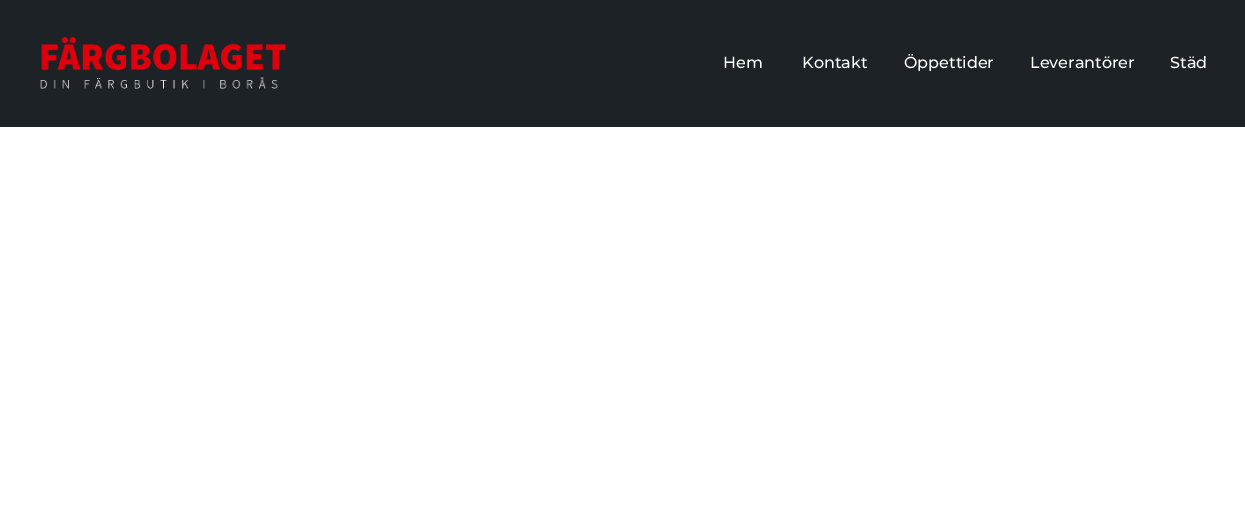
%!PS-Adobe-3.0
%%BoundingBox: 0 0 1245 514
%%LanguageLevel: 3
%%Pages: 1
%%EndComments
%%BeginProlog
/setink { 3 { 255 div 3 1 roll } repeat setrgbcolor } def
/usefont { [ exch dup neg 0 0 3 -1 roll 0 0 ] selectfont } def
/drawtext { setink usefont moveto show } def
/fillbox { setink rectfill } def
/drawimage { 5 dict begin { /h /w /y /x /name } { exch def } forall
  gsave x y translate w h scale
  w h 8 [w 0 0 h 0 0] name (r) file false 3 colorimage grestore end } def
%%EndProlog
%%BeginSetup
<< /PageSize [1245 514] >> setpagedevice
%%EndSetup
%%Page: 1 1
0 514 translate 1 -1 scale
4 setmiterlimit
0 0 1245 514 255 255 255 fillbox
0 0 1245 127 28 34 37 fillbox
(assets/img1.rgb) 40 36 247 53 drawimage
(Hem) 723 68 /Montserrat-Medium 16 255 255 255 drawtext
(Kontakt) 802 68 /Montserrat-Medium 16 255 255 255 drawtext
(Öppettider) 904 68 /Montserrat-Medium 16 255 255 255 drawtext
(Leverantörer) 1030 68 /Montserrat-Medium 16 255 255 255 drawtext
(Städ) 1170 68 /Montserrat-Medium 16 255 255 255 drawtext
showpage
%%EOF
